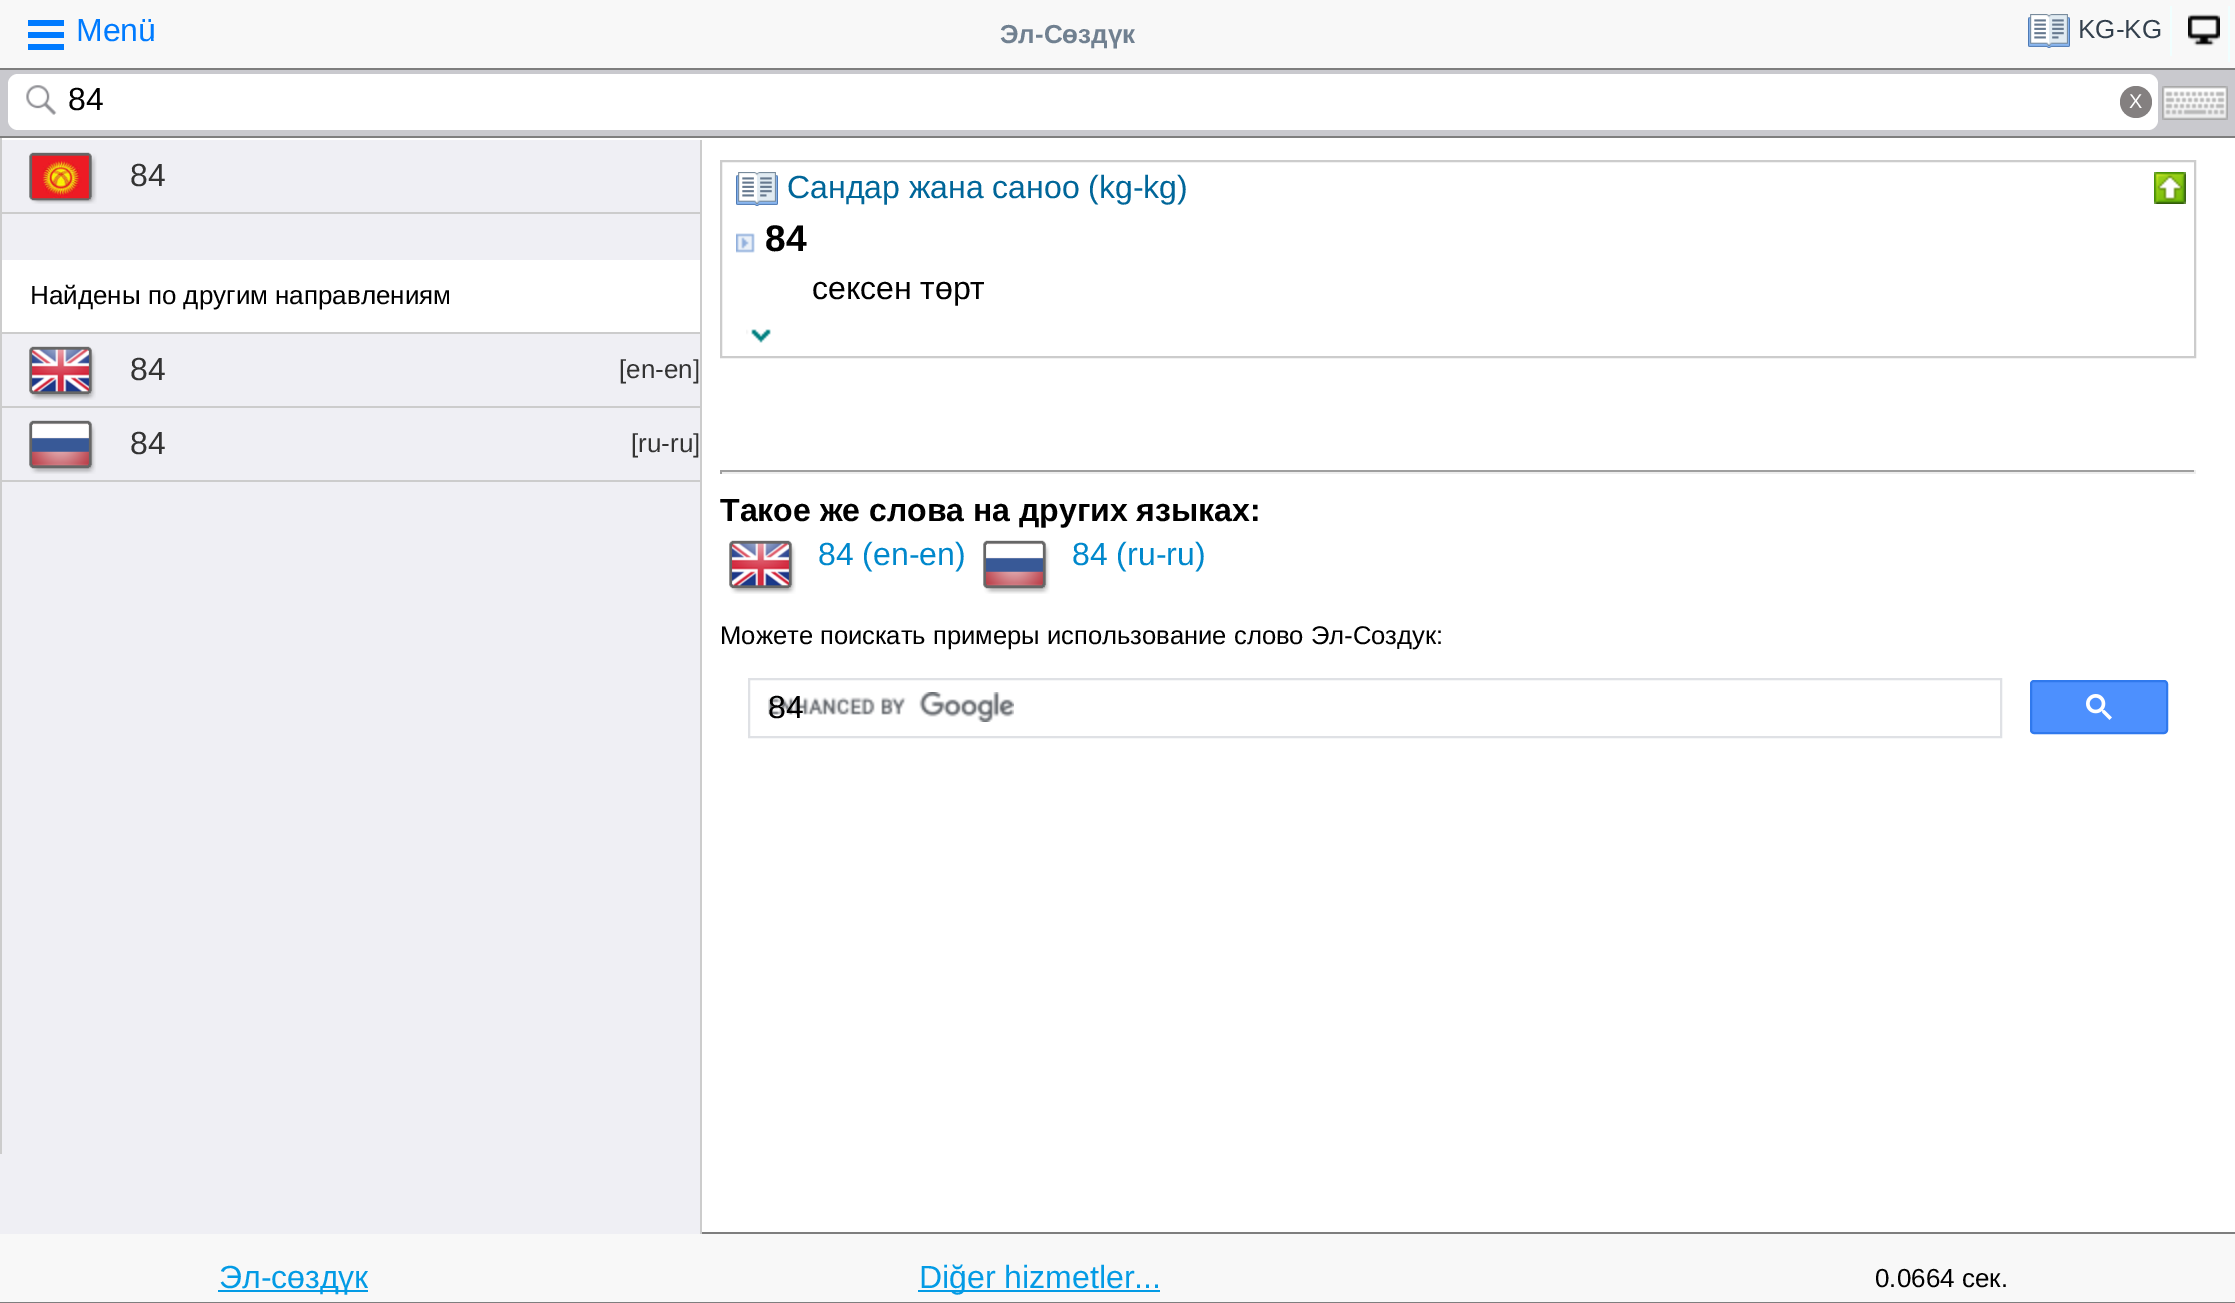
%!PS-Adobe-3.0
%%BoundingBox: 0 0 2235 1303
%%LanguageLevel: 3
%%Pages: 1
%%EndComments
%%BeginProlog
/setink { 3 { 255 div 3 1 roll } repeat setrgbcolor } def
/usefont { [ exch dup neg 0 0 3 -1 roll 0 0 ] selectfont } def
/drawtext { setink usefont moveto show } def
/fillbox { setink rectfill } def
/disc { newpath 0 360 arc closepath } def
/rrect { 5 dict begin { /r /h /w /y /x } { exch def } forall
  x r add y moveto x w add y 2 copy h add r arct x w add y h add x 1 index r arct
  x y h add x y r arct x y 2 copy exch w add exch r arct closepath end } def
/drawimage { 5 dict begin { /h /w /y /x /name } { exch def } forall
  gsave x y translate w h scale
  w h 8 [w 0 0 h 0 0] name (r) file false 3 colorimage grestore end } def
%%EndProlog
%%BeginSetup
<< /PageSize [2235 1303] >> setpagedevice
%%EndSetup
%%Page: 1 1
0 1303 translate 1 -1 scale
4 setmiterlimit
0 0 2235 1303 255 255 255 fillbox
0 0 2235 68 248 248 248 fillbox
0 68 2235 2 126 126 126 fillbox
28 20 36 6 0 123 255 fillbox
28 32 36 6 0 123 255 fillbox
28 44 36 6 0 123 255 fillbox
(Menü) 76 41 /LiberationSans-Regular 32 0 123 255 drawtext
(Эл-Сөздүк) 1000 43 /LiberationSans-Bold 26 112 128 144 drawtext
2170 6 2 50 240 255 255 fillbox
(assets/img1.rgb) 2028 14 42 34 drawimage
(KG-KG) 2078 38 /LiberationSans-Regular 26 51 64 77 drawtext
2228 6 2 56 240 255 255 fillbox
(assets/img2.rgb) 2188 14 32 32 drawimage
0 70 2235 66 201 201 206 fillbox
0 136 2235 2 126 126 126 fillbox
255 255 255 setink
8 74 2150 56 10 rrect fill
(assets/img3.rgb) 26 85 31 30 drawimage
(84) 68 110 /LiberationSans-Regular 32 0 0 0 drawtext
132 128 128 setink
2136 102 16 disc fill
(X) 2129 108 /LiberationSans-Regular 20 255 255 255 drawtext
(assets/img4.rgb) 2162 86 66 34 drawimage
0 140 700 1094 239 239 244 fillbox
0 212 700 2 204 204 204 fillbox
0 332 700 2 204 204 204 fillbox
0 406 700 2 204 204 204 fillbox
0 480 700 2 204 204 204 fillbox
0 138 2 1016 204 204 204 fillbox
700 140 2 1094 204 204 204 fillbox
(assets/img5.rgb) 29 152 68 52 drawimage
(84) 130 186 /LiberationSans-Regular 32 51 51 51 drawtext
2 260 698 72 255 255 255 fillbox
(Найдены по другим направлениям) 30 304 /LiberationSans-Regular 26 0 0 0 drawtext
(assets/img6.rgb) 29 346 67 54 drawimage
(84) 130 380 /LiberationSans-Regular 32 51 51 51 drawtext
([en-en]) 619 378 /LiberationSans-Regular 26 51 51 51 drawtext
(assets/img7.rgb) 29 420 67 54 drawimage
(84) 130 454 /LiberationSans-Regular 32 51 51 51 drawtext
([ru-ru]) 631 452 /LiberationSans-Regular 26 51 51 51 drawtext
204 204 204 setink
2 setlinewidth
721 161 1474 196 rectstroke
(assets/img8.rgb) 736 172 42 34 drawimage
(Сандар жана саноо \(kg-kg\)) 787 198 /LiberationSans-Regular 32 0 102 153 drawtext
(assets/img9.rgb) 2154 172 32 32 drawimage
(assets/img10.rgb) 736 233 19 20 drawimage
(84) 765 251 /LiberationSans-Bold 37 0 0 0 drawtext
(сексен төрт) 812 299 /LiberationSans-Regular 32 0 0 0 drawtext
(assets/img11.rgb) 746 329 25 14 drawimage
720 470 1476 2 159 159 159 fillbox
2194 470 2 4 238 238 238 fillbox
720 472 1476 2 238 238 238 fillbox
720 470 2 4 159 159 159 fillbox
(Такое же слова на других языках:) 720 521 /LiberationSans-Bold 32 0 0 0 drawtext
(assets/img12.rgb) 729 540 67 54 drawimage
(84 \(en-en\)) 818 565 /LiberationSans-Regular 32 0 136 204 drawtext
(assets/img13.rgb) 983 540 67 54 drawimage
(84 \(ru-ru\)) 1072 565 /LiberationSans-Regular 32 0 136 204 drawtext
(Можете поискать примеры использование слово Эл-Создук:) 720 644 /LiberationSans-Regular 25.6 0 0 0 drawtext
223 225 229 setink
749 679 1252 58 rectstroke
(assets/img14.rgb) 768 692 246 30 drawimage
(84) 768 718 /LiberationSans-Regular 32 0 0 0 drawtext
77 144 254 setink
2031 681 136 52 3 rrect gsave fill grestore
48 121 237 setink
stroke
(assets/img15.rgb) 2086 694 26 26 drawimage
0 1234 2235 68 248 248 248 fillbox
702 1232 1533 2 126 126 126 fillbox
0 1302 2235 1 126 126 126 fillbox
218 1290 150 2 3 155 229 fillbox
(Эл-сөздүк) 219 1288 /LiberationSans-Regular 32 3 155 229 drawtext
918 1290 242 2 3 155 229 fillbox
(Diğer hizmetler...) 919 1288 /LiberationSans-Regular 32 3 155 229 drawtext
(0.0664 сек.) 1875 1287 /LiberationSans-Regular 26 0 0 0 drawtext
showpage
%%EOF
